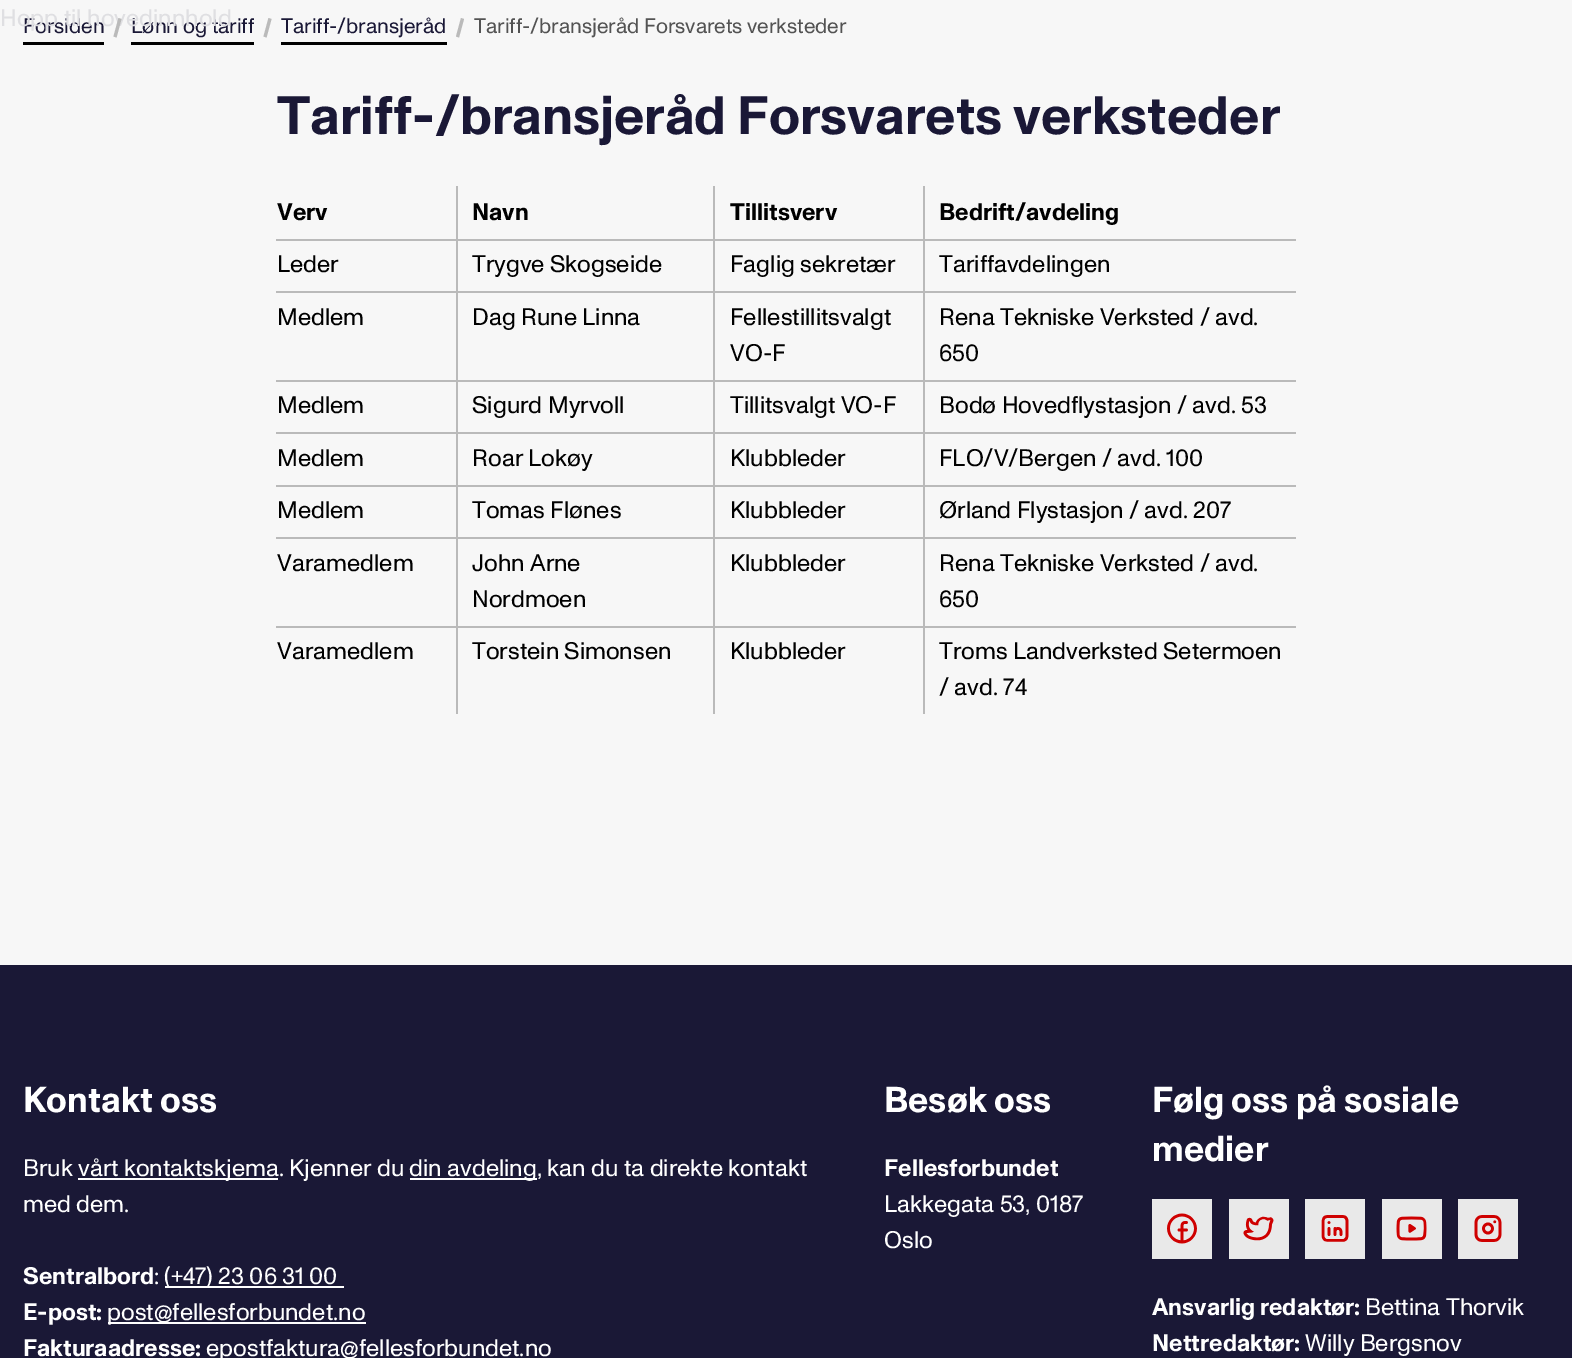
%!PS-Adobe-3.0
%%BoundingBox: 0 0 1572 1358
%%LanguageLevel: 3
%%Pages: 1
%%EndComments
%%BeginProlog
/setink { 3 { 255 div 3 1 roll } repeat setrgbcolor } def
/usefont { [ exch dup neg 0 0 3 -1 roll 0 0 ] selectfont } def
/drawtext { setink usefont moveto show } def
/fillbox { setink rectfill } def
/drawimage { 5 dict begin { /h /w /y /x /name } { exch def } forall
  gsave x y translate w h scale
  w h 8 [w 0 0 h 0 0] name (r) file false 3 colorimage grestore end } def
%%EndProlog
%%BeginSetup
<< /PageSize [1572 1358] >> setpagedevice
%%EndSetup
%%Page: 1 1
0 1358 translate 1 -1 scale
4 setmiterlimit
0 0 1572 1358 247 247 247 fillbox
(Forsiden) 23 33 /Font-Regular 21 26 24 54 drawtext
(Lønn og tariff) 131 33 /Font-Regular 21 26 24 54 drawtext
(Hopp til hovedinnhold) 0 26 /Font-Regular 24 223 223 226 drawtext
23 42 81 3 0 0 0 fillbox
186 186 186 setink
118.5 18 moveto 121.5 19 lineto 116.5 37.5 lineto 113.5 36.5 lineto closepath fill
131 42 123 3 0 0 0 fillbox
186 186 186 setink
268.5 18 moveto 271.5 19 lineto 266.5 37.5 lineto 263.5 36.5 lineto closepath fill
281 42 166 3 0 0 0 fillbox
(Tariff-/bransjeråd) 281 33 /Font-Regular 21 26 24 54 drawtext
186 186 186 setink
461 18 moveto 464 19 lineto 459 37.5 lineto 456 36.5 lineto closepath fill
(Tariff-/bransjeråd Forsvarets verksteder) 474 33 /Font-Regular 21 83 83 83 drawtext
(Tariff-/bransjeråd Forsvarets verksteder) 277 134 /Font-Bold 54 26 24 54 drawtext
(Verv) 277 220 /Font-Bold 24 0 0 0 drawtext
923 239 373 2 186 186 186 fillbox
923 291 373 2 186 186 186 fillbox
923 380 373 2 186 186 186 fillbox
923 432 373 2 186 186 186 fillbox
923 485 373 2 186 186 186 fillbox
923 537 373 2 186 186 186 fillbox
923 626 373 2 186 186 186 fillbox
923 626 2 88 186 186 186 fillbox
713 626 211 2 186 186 186 fillbox
923 537 2 90 186 186 186 fillbox
713 537 211 2 186 186 186 fillbox
923 485 2 54 186 186 186 fillbox
713 485 211 2 186 186 186 fillbox
923 432 2 54 186 186 186 fillbox
713 432 211 2 186 186 186 fillbox
923 380 2 54 186 186 186 fillbox
713 380 211 2 186 186 186 fillbox
923 291 2 90 186 186 186 fillbox
713 291 211 2 186 186 186 fillbox
923 239 2 54 186 186 186 fillbox
713 239 211 2 186 186 186 fillbox
713 626 2 88 186 186 186 fillbox
456 626 258 2 186 186 186 fillbox
713 537 2 90 186 186 186 fillbox
456 537 258 2 186 186 186 fillbox
713 485 2 54 186 186 186 fillbox
456 485 258 2 186 186 186 fillbox
713 432 2 54 186 186 186 fillbox
456 432 258 2 186 186 186 fillbox
713 380 2 54 186 186 186 fillbox
456 380 258 2 186 186 186 fillbox
713 291 2 90 186 186 186 fillbox
456 291 258 2 186 186 186 fillbox
713 239 2 54 186 186 186 fillbox
456 239 258 2 186 186 186 fillbox
456 626 2 88 186 186 186 fillbox
276 626 182 2 186 186 186 fillbox
456 537 2 90 186 186 186 fillbox
276 537 182 2 186 186 186 fillbox
456 485 2 54 186 186 186 fillbox
276 485 182 2 186 186 186 fillbox
456 432 2 54 186 186 186 fillbox
276 432 182 2 186 186 186 fillbox
456 380 2 54 186 186 186 fillbox
276 380 182 2 186 186 186 fillbox
456 291 2 90 186 186 186 fillbox
276 291 182 2 186 186 186 fillbox
456 239 2 54 186 186 186 fillbox
276 239 182 2 186 186 186 fillbox
456 186 2 54 186 186 186 fillbox
(Navn) 472 220 /Font-Bold 24 0 0 0 drawtext
713 186 2 54 186 186 186 fillbox
(Tillitsverv) 730 220 /Font-Bold 24 0 0 0 drawtext
923 186 2 54 186 186 186 fillbox
(Bedrift/avdeling) 939 220 /Font-Bold 24 0 0 0 drawtext
(Leder) 277 272 /Font-Regular 24 0 0 0 drawtext
(Trygve Skogseide) 472 272 /Font-Regular 24 0 0 0 drawtext
(Faglig sekretær) 730 272 /Font-Regular 24 0 0 0 drawtext
(Tariffavdelingen) 939 272 /Font-Regular 24 0 0 0 drawtext
(Medlem) 277 325 /Font-Regular 24 0 0 0 drawtext
(Dag Rune Linna) 472 325 /Font-Regular 24 0 0 0 drawtext
(Fellestillitsvalgt) 730 325 /Font-Regular 24 0 0 0 drawtext
(VO-F) 730 361 /Font-Regular 24 0 0 0 drawtext
(Rena Tekniske Verksted / avd.) 939 325 /Font-Regular 24 0 0 0 drawtext
(650) 939 361 /Font-Regular 24 0 0 0 drawtext
(Medlem) 277 413 /Font-Regular 24 0 0 0 drawtext
(Sigurd Myrvoll) 472 413 /Font-Regular 24 0 0 0 drawtext
(Tillitsvalgt VO-F) 730 413 /Font-Regular 24 0 0 0 drawtext
(Bodø Hovedflystasjon / avd. 53) 939 413 /Font-Regular 24 0 0 0 drawtext
(Medlem) 277 466 /Font-Regular 24 0 0 0 drawtext
(Roar Lokøy) 472 466 /Font-Regular 24 0 0 0 drawtext
(Klubbleder) 730 466 /Font-Regular 24 0 0 0 drawtext
(FLO/V/Bergen / avd. 100) 939 466 /Font-Regular 24 0 0 0 drawtext
(Medlem) 277 518 /Font-Regular 24 0 0 0 drawtext
(Tomas Flønes) 472 518 /Font-Regular 24 0 0 0 drawtext
(Klubbleder) 730 518 /Font-Regular 24 0 0 0 drawtext
(Ørland Flystasjon / avd. 207) 939 518 /Font-Regular 24 0 0 0 drawtext
(Varamedlem) 277 571 /Font-Regular 24 0 0 0 drawtext
(John Arne) 472 571 /Font-Regular 24 0 0 0 drawtext
(Nordmoen) 472 607 /Font-Regular 24 0 0 0 drawtext
(Klubbleder) 730 571 /Font-Regular 24 0 0 0 drawtext
(Rena Tekniske Verksted / avd.) 939 571 /Font-Regular 24 0 0 0 drawtext
(650) 939 607 /Font-Regular 24 0 0 0 drawtext
(Varamedlem) 277 659 /Font-Regular 24 0 0 0 drawtext
(Torstein Simonsen) 472 659 /Font-Regular 24 0 0 0 drawtext
(Klubbleder) 730 659 /Font-Regular 24 0 0 0 drawtext
(Troms Landverksted Setermoen) 939 659 /Font-Regular 24 0 0 0 drawtext
(/ avd. 74) 939 695 /Font-Regular 24 0 0 0 drawtext
0 965 1572 393 26 24 54 fillbox
(Kontakt oss) 23 1112 /Font-Bold 36 255 255 255 drawtext
(Bruk) 23 1176 /Font-Regular 24 255 255 255 drawtext
78 1178 200 2 255 255 255 fillbox
(vårt kontaktskjema. Kjenner du) 78 1176 /Font-Regular 24 255 255 255 drawtext
410 1178 127 2 255 255 255 fillbox
(din avdeling, kan du ta direkte kontakt) 409 1176 /Font-Regular 24 255 255 255 drawtext
(med dem.) 23 1212 /Font-Regular 24 255 255 255 drawtext
(Sentralbord) 23 1284 /Font-Bold 24 255 255 255 drawtext
(:) 154 1284 /Font-Regular 24 255 255 255 drawtext
165 1286 179 2 255 255 255 fillbox
(\(+47\) 23 06 31 00) 164 1284 /Font-Regular 24 255 255 255 drawtext
(E-post:) 23 1320 /Font-Bold 24 255 255 255 drawtext
108 1322 258 2 255 255 255 fillbox
(post@fellesforbundet.no) 107 1320 /Font-Regular 24 255 255 255 drawtext
(Fakturaadresse:) 23 1356 /Font-Bold 24 255 255 255 drawtext
(epostfaktura@fellesforbundet.no) 206 1356 /Font-Regular 24 255 255 255 drawtext
(Besøk oss) 884 1112 /Font-Bold 36 255 255 255 drawtext
(Fellesforbundet) 884 1176 /Font-Bold 24 255 255 255 drawtext
(Lakkegata 53, 0187) 884 1212 /Font-Regular 24 255 255 255 drawtext
(Oslo) 884 1248 /Font-Regular 24 255 255 255 drawtext
(Følg oss på sosiale) 1152 1112 /Font-Bold 36 255 255 255 drawtext
(medier) 1152 1161 /Font-Bold 36 255 255 255 drawtext
1152 1199 60 60 233 233 233 fillbox
(assets/img1.rgb) 1167 1213 30 31 drawimage
1229 1199 60 60 233 233 233 fillbox
(assets/img2.rgb) 1243 1216 31 25 drawimage
1305 1199 60 60 233 233 233 fillbox
(assets/img3.rgb) 1321 1215 28 27 drawimage
1382 1199 60 60 233 233 233 fillbox
(assets/img4.rgb) 1396 1216 31 25 drawimage
1458 1199 60 60 233 233 233 fillbox
(assets/img5.rgb) 1474 1215 28 27 drawimage
(Ansvarlig redaktør:) 1152 1315 /Font-Bold 24 255 255 255 drawtext
(Bettina Thorvik) 1365 1315 /Font-Regular 24 255 255 255 drawtext
(Nettredaktør:) 1152 1351 /Font-Bold 24 255 255 255 drawtext
(Willy Bergsnov) 1305 1351 /Font-Regular 24 255 255 255 drawtext
showpage
%%EOF
